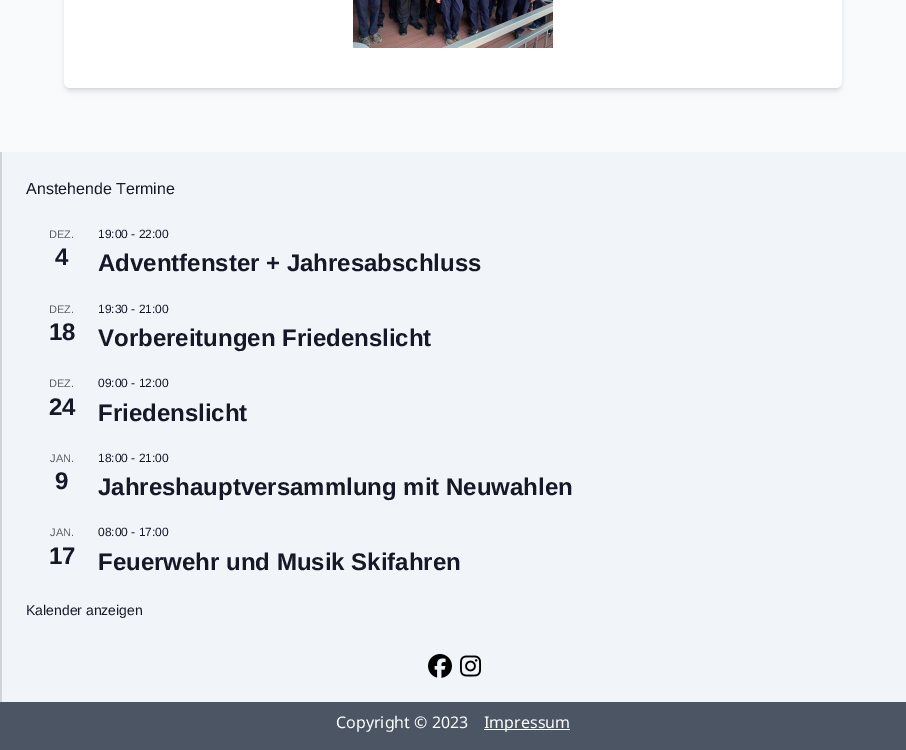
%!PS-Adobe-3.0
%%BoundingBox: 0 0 906 750
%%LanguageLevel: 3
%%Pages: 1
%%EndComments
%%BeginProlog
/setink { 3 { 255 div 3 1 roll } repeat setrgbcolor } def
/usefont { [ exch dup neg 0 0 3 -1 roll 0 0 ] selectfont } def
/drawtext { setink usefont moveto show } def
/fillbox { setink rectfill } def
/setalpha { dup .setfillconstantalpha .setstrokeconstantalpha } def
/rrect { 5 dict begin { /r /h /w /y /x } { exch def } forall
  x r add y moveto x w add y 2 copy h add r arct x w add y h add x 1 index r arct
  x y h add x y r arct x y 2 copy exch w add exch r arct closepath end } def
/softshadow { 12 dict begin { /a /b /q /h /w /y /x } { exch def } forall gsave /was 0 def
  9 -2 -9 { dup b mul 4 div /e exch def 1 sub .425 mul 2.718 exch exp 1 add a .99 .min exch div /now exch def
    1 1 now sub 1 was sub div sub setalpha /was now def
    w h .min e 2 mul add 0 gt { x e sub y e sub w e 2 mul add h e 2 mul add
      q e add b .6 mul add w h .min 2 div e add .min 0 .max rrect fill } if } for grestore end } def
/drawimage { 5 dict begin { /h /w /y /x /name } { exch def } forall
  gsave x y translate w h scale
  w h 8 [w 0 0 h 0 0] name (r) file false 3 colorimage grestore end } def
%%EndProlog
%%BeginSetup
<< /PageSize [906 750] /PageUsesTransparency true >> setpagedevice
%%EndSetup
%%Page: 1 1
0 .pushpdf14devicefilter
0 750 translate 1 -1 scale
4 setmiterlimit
0 0 906 750 241 245 249 fillbox
0 0 906 152 248 250 252 fillbox
0 0 0 setink
66 -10 774 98 4 2 0.1 softshadow
65 -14 776 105 5 3 0.1 softshadow
255 255 255 setink
64 -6 778 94 6 rrect fill
(assets/img1.rgb) 353 0 200 48 drawimage
0 152 2 550 209 213 219 fillbox
(Anstehende Termine) 26 194 /LiberationSans-Regular 16 20 24 39 drawtext
(DEZ.) 49 238 /LiberationSans-Regular 11 93 93 93 drawtext
(4) 55 265 /LiberationSans-Bold 24 20 24 39 drawtext
(19:00 - 22:00) 98 238 /LiberationSans-Regular 12 20 24 39 drawtext
(Adventfenster + Jahresabschluss) 98 271 /LiberationSans-Bold 24 20 24 39 drawtext
(DEZ.) 49 313 /LiberationSans-Regular 11 93 93 93 drawtext
(18) 49 340 /LiberationSans-Bold 24 20 24 39 drawtext
(19:30 - 21:00) 98 313 /LiberationSans-Regular 12 20 24 39 drawtext
(Vorbereitungen Friedenslicht) 98 346 /LiberationSans-Bold 24 20 24 39 drawtext
(DEZ.) 49 387 /LiberationSans-Regular 11 93 93 93 drawtext
(24) 49 415 /LiberationSans-Bold 24 20 24 39 drawtext
(09:00 - 12:00) 98 387 /LiberationSans-Regular 12 20 24 39 drawtext
(Friedenslicht) 98 421 /LiberationSans-Bold 24 20 24 39 drawtext
(JAN.) 50 462 /LiberationSans-Regular 11 93 93 93 drawtext
(9) 55 489 /LiberationSans-Bold 24 20 24 39 drawtext
(18:00 - 21:00) 98 462 /LiberationSans-Regular 12 20 24 39 drawtext
(Jahreshauptversammlung mit Neuwahlen) 98 495 /LiberationSans-Bold 24 20 24 39 drawtext
(JAN.) 50 536 /LiberationSans-Regular 11 93 93 93 drawtext
(17) 49 564 /LiberationSans-Bold 24 20 24 39 drawtext
(08:00 - 17:00) 98 536 /LiberationSans-Regular 12 20 24 39 drawtext
(Feuerwehr und Musik Skifahren) 98 570 /LiberationSans-Bold 24 20 24 39 drawtext
(Kalender anzeigen) 26 615 /LiberationSans-Regular 14 20 24 39 drawtext
(assets/img2.rgb) 428 654 24 24 drawimage
(assets/img3.rgb) 460 655 21 22 drawimage
0 702 906 48 75 85 99 fillbox
(Copyright © 2023) 336 728 /NotoSans-Regular 16 255 255 255 drawtext
484 729 86 1 255 255 255 fillbox
(Impressum) 484 728 /NotoSans-Regular 16 255 255 255 drawtext
.poppdf14devicefilter showpage
%%EOF
